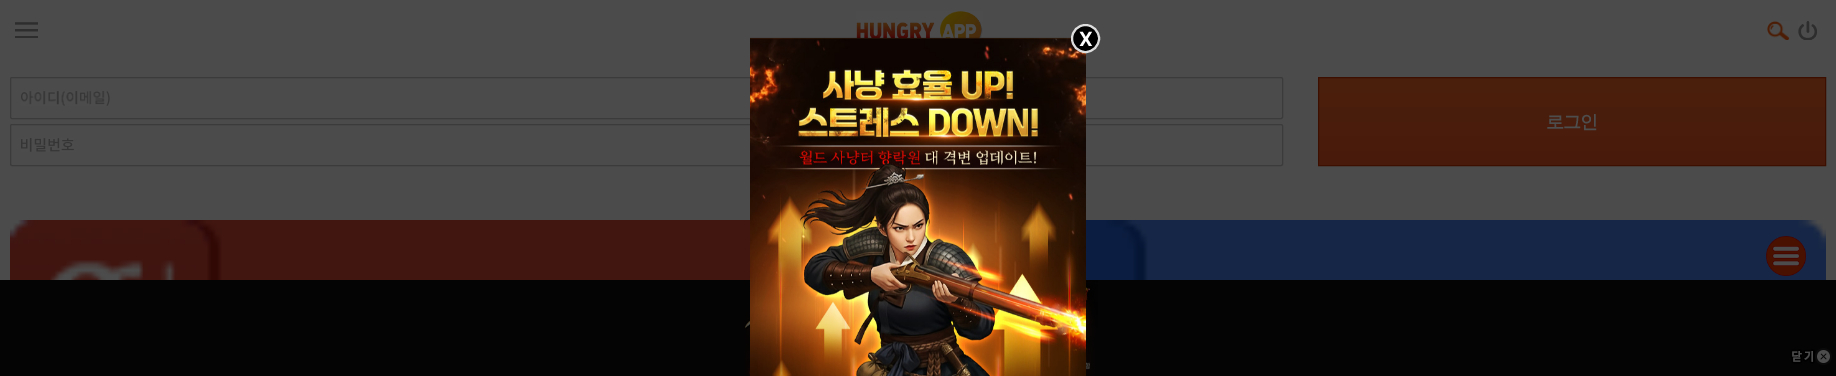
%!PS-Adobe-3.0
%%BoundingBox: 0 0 1836 376
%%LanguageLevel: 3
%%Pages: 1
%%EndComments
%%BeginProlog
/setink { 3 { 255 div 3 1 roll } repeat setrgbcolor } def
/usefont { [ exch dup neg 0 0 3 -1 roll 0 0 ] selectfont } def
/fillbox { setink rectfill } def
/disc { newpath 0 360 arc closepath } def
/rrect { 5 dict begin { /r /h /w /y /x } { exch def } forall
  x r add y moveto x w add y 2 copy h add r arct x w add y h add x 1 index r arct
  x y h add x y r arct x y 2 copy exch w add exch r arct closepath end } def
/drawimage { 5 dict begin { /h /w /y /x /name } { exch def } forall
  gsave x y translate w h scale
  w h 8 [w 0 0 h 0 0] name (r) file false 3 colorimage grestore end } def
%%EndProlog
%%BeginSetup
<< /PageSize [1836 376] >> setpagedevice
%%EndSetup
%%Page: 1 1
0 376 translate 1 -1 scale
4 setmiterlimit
0 0 1836 376 75 75 75 fillbox
(assets/img1.rgb) 856 11 127 28 drawimage
(assets/img2.rgb) 15 22 23 16 drawimage
(assets/img3.rgb) 1767 21 23 19 drawimage
(assets/img4.rgb) 1798 21 19 19 drawimage
59 59 59 setink
10.5 77.5 1272 41 1.5 rrect stroke
10.5 124.5 1272 41 1.5 rrect stroke
0 280 1836 96 5 4 4 fillbox
(assets/img11.rgb) 743 280 355 96 drawimage
(assets/img5.rgb) 750 37 336 339 drawimage
0 0 0 setink
1085.5 38.5 13.5 disc gsave fill grestore
221 221 221 setink
2 setlinewidth
stroke
/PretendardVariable-Bold 20 usefont
255 255 255 setink
1079 46 moveto -1 0 (X) ashow
(assets/img6.rgb) 21 91 89 15 drawimage
(assets/img7.rgb) 21 138 53 14 drawimage
gsave 1319 78 moveto 1825 78 lineto 1825 165 lineto 1319 165 lineto closepath clip newpath
<< /ShadingType 2 /ColorSpace /DeviceRGB /Coords [1319 78 1319 165] /Extend [true true] /Function << /FunctionType 2 /Domain [0 1] /C0 [0.294 0.125 0.043] /C1 [0.282 0.102 0.043] /N 1 >> >> shfill grestore
61 15 1 setink
1 setlinewidth
1318.5 77.5 507 88 rectstroke
/WenQuanYiZenHei-Bold 18 usefont
77 77 77 setink
1546 128 moveto -1 0 (로그인) ashow
(assets/img8.rgb) 10 220 740 60 drawimage
(assets/img9.rgb) 1086 220 740 60 drawimage
(assets/img10.rgb) 1766 236 40 40 drawimage
(assets/img12.rgb) 1790 348 42 17 drawimage
showpage
%%EOF
